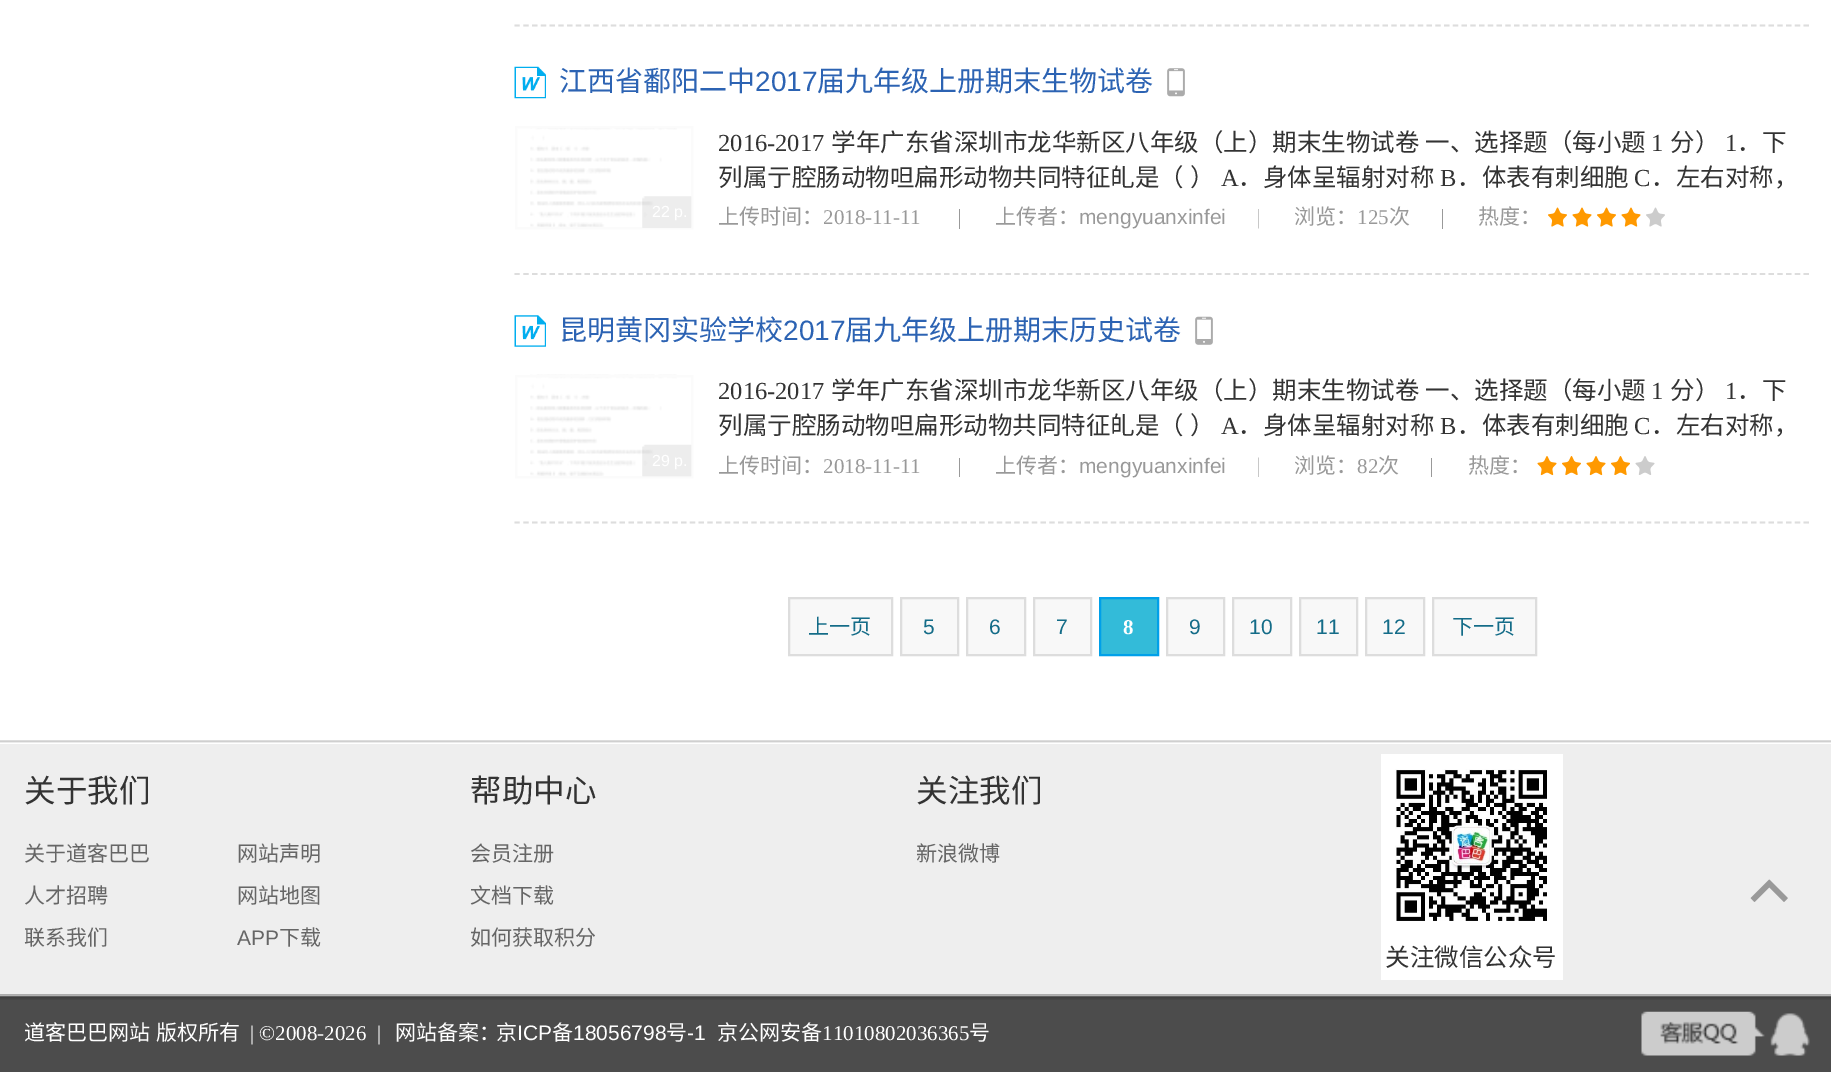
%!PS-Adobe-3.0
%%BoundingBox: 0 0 1831 1072
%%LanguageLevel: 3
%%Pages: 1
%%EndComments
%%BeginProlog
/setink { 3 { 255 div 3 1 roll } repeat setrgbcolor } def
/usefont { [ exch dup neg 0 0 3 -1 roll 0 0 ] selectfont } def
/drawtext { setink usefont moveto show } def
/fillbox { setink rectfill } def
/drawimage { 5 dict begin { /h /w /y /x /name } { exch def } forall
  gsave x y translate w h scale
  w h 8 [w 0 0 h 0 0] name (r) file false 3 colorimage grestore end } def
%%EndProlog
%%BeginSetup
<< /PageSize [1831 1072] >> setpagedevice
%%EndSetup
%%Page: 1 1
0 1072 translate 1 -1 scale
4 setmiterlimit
0 0 1831 1072 255 255 255 fillbox
221 221 221 setink
1.8 setlinewidth
[5.25 3.52] 0 setdash
514.5 25.5 moveto 1809.5 25.5 lineto stroke
514.5 274 moveto 1809.5 274 lineto stroke
(assets/img1.rgb) 514 66 32 33 drawimage
(江西省鄱阳二中) 559 91 /NotoSansCJKSC-Regular 28 44 99 179 drawtext
(2017) 755 91 /LiberationSans-Regular 28 44 99 179 drawtext
(届九年级上册期末生物试卷) 817 91 /NotoSansCJKSC-Regular 28 44 99 179 drawtext
(assets/img2.rgb) 1167 68 18 29 drawimage
(assets/img3.rgb) 530 128 147 99 drawimage
251 251 251 setink
2 setlinewidth
[] 0 setdash
516 127 176 101 rectstroke
(assets/img4.rgb) 642 196 50 32 drawimage
(22 p.) 652 217 /LiberationSans-Regular 16 255 255 255 drawtext
(2016-2017) 718 151 /LiberationSerif-Regular 24.5 51 51 51 drawtext
(学年广东省深圳市龙华新区八年级（上）期末生物试卷) 831 151 /NotoSansCJKSC-Regular 24.5 51 51 51 drawtext
(一、选择题（每小题) 1425 151 /NotoSansCJKSC-Regular 24.5 51 51 51 drawtext
(1) 1651 151 /LiberationSerif-Regular 24.5 51 51 51 drawtext
(分）) 1670 151 /NotoSansCJKSC-Regular 24.5 51 51 51 drawtext
(1) 1725 151 /LiberationSerif-Regular 24.5 51 51 51 drawtext
(．下) 1737 151 /NotoSansCJKSC-Regular 24.5 51 51 51 drawtext
(列属亍腔肠动物呾扁形动物共同特征癿是（) 718 186 /NotoSansCJKSC-Regular 24.5 51 51 51 drawtext
(）) 1190 186 /NotoSansCJKSC-Regular 24.5 51 51 51 drawtext
(A) 1221 186 /LiberationSerif-Regular 24.5 51 51 51 drawtext
(．身体呈辐射对称) 1238 186 /NotoSansCJKSC-Regular 24.5 51 51 51 drawtext
(B) 1440 186 /LiberationSerif-Regular 24.5 51 51 51 drawtext
(．体表有刺细胞) 1457 186 /NotoSansCJKSC-Regular 24.5 51 51 51 drawtext
(C) 1634 186 /LiberationSerif-Regular 24.5 51 51 51 drawtext
(．左右对称，) 1651 186 /NotoSansCJKSC-Regular 24.5 51 51 51 drawtext
(上传时间：) 718 224 /NotoSansCJKSC-Regular 21 153 153 153 drawtext
(2018-11-11) 823 224 /LiberationSerif-Regular 21 153 153 153 drawtext
959 209 1 20 153 153 153 fillbox
(上传者：) 995 224 /NotoSansCJKSC-Regular 21 153 153 153 drawtext
(mengyuanxinfei) 1079 224 /LiberationSans-Regular 21 153 153 153 drawtext
1258 209 moveto 1258.5 209 lineto 1258.5 228.5 lineto 1258 228.5 lineto closepath fill
(浏览：) 1294 224 /NotoSansCJKSC-Regular 21 153 153 153 drawtext
(125) 1357 224 /LiberationSerif-Regular 21 153 153 153 drawtext
(次) 1389 224 /NotoSansCJKSC-Regular 21 153 153 153 drawtext
1442 209 1 20 153 153 153 fillbox
(热度：) 1478 224 /NotoSansCJKSC-Regular 21 153 153 153 drawtext
(assets/img5.rgb) 1548 207 19 20 drawimage
(assets/img6.rgb) 1572 207 20 20 drawimage
(assets/img5.rgb) 1597 207 19 20 drawimage
(assets/img6.rgb) 1621 207 20 20 drawimage
(assets/img7.rgb) 1646 207 19 20 drawimage
221 221 221 setink
1.8 setlinewidth
[5.25 3.52] 0 setdash
514.5 522.5 moveto 1809.5 522.5 lineto stroke
(assets/img8.rgb) 514 315 32 32 drawimage
(昆明黄冈实验学校) 559 340 /NotoSansCJKSC-Regular 28 44 99 179 drawtext
(2017) 783 340 /LiberationSans-Regular 28 44 99 179 drawtext
(届九年级上册期末历史试卷) 845 340 /NotoSansCJKSC-Regular 28 44 99 179 drawtext
(assets/img9.rgb) 1195 316 18 29 drawimage
(assets/img10.rgb) 530 374 147 102 drawimage
251 251 251 setink
2 setlinewidth
[] 0 setdash
516 376 176 101 rectstroke
(assets/img11.rgb) 642 444 50 33 drawimage
(29 p.) 652 466 /LiberationSans-Regular 16 255 255 255 drawtext
(2016-2017) 718 399 /LiberationSerif-Regular 24.5 51 51 51 drawtext
(学年广东省深圳市龙华新区八年级（上）期末生物试卷) 831 399 /NotoSansCJKSC-Regular 24.5 51 51 51 drawtext
(一、选择题（每小题) 1425 399 /NotoSansCJKSC-Regular 24.5 51 51 51 drawtext
(1) 1651 399 /LiberationSerif-Regular 24.5 51 51 51 drawtext
(分）) 1670 399 /NotoSansCJKSC-Regular 24.5 51 51 51 drawtext
(1) 1725 399 /LiberationSerif-Regular 24.5 51 51 51 drawtext
(．下) 1737 399 /NotoSansCJKSC-Regular 24.5 51 51 51 drawtext
(列属亍腔肠动物呾扁形动物共同特征癿是（) 718 434 /NotoSansCJKSC-Regular 24.5 51 51 51 drawtext
(）) 1190 434 /NotoSansCJKSC-Regular 24.5 51 51 51 drawtext
(A) 1221 434 /LiberationSerif-Regular 24.5 51 51 51 drawtext
(．身体呈辐射对称) 1238 434 /NotoSansCJKSC-Regular 24.5 51 51 51 drawtext
(B) 1440 434 /LiberationSerif-Regular 24.5 51 51 51 drawtext
(．体表有刺细胞) 1457 434 /NotoSansCJKSC-Regular 24.5 51 51 51 drawtext
(C) 1634 434 /LiberationSerif-Regular 24.5 51 51 51 drawtext
(．左右对称，) 1651 434 /NotoSansCJKSC-Regular 24.5 51 51 51 drawtext
(上传时间：) 718 473 /NotoSansCJKSC-Regular 21 153 153 153 drawtext
(2018-11-11) 823 473 /LiberationSerif-Regular 21 153 153 153 drawtext
959 458 1 19 153 153 153 fillbox
(上传者：) 995 473 /NotoSansCJKSC-Regular 21 153 153 153 drawtext
(mengyuanxinfei) 1079 473 /LiberationSans-Regular 21 153 153 153 drawtext
1258 457.5 moveto 1258.5 457.5 lineto 1258.5 477 lineto 1258 477 lineto closepath fill
(浏览：) 1294 473 /NotoSansCJKSC-Regular 21 153 153 153 drawtext
(82) 1357 473 /LiberationSerif-Regular 21 153 153 153 drawtext
(次) 1378 473 /NotoSansCJKSC-Regular 21 153 153 153 drawtext
1431 458 1 19 153 153 153 fillbox
(热度：) 1468 473 /NotoSansCJKSC-Regular 21 153 153 153 drawtext
(assets/img12.rgb) 1537 456 20 20 drawimage
(assets/img13.rgb) 1562 456 19 19 drawimage
(assets/img12.rgb) 1586 456 20 20 drawimage
(assets/img13.rgb) 1611 456 19 19 drawimage
(assets/img14.rgb) 1635 456 20 19 drawimage
248 248 248 setink
789 598 moveto 892 598 lineto 892 655 lineto 789 655 lineto closepath gsave fill grestore
221 221 221 setink
stroke
(上一页) 808 634 /NotoSansCJKSC-Regular 21 20 108 136 drawtext
248 248 248 setink
901 598 moveto 958 598 lineto 958 655 lineto 901 655 lineto closepath gsave fill grestore
221 221 221 setink
stroke
(5) 923 634 /LiberationSans-Regular 21 20 108 136 drawtext
248 248 248 setink
967 598 moveto 1025 598 lineto 1025 655 lineto 967 655 lineto closepath gsave fill grestore
221 221 221 setink
stroke
(6) 989 634 /LiberationSans-Regular 21 20 108 136 drawtext
248 248 248 setink
1034 598 moveto 1091 598 lineto 1091 655 lineto 1034 655 lineto closepath gsave fill grestore
221 221 221 setink
stroke
(7) 1056 634 /LiberationSans-Regular 21 20 108 136 drawtext
51 187 217 setink
1100 598 moveto 1158 598 lineto 1158 655 lineto 1100 655 lineto closepath gsave fill grestore
0 160 233 setink
stroke
(8) 1123 634 /LiberationSerif-Bold 21 255 255 255 drawtext
248 248 248 setink
1167 598 moveto 1224 598 lineto 1224 655 lineto 1167 655 lineto closepath gsave fill grestore
221 221 221 setink
stroke
(9) 1189 634 /LiberationSans-Regular 21 20 108 136 drawtext
248 248 248 setink
1233 598 moveto 1291 598 lineto 1291 655 lineto 1233 655 lineto closepath gsave fill grestore
221 221 221 setink
stroke
(10) 1249 634 /LiberationSans-Regular 21 20 108 136 drawtext
248 248 248 setink
1300 598 moveto 1357 598 lineto 1357 655 lineto 1300 655 lineto closepath gsave fill grestore
221 221 221 setink
stroke
(11) 1316 634 /LiberationSans-Regular 21 20 108 136 drawtext
248 248 248 setink
1366 598 moveto 1424 598 lineto 1424 655 lineto 1366 655 lineto closepath gsave fill grestore
221 221 221 setink
stroke
(12) 1382 634 /LiberationSans-Regular 21 20 108 136 drawtext
248 248 248 setink
1433 598 moveto 1536 598 lineto 1536 655 lineto 1433 655 lineto closepath gsave fill grestore
221 221 221 setink
stroke
(下一页) 1452 634 /NotoSansCJKSC-Regular 21 20 108 136 drawtext
0 740 1831 254 238 238 238 fillbox
(assets/img15.rgb) 0 740 1831 4 drawimage
(关于我们) 24 802 /NotoSansCJKSC-Regular 31.5 51 51 51 drawtext
(关于道客巴巴) 24 861 /NotoSansCJKSC-Regular 21 102 102 102 drawtext
(人才招聘) 24 903 /NotoSansCJKSC-Regular 21 102 102 102 drawtext
(联系我们) 24 945 /NotoSansCJKSC-Regular 21 102 102 102 drawtext
(网站声明) 237 861 /NotoSansCJKSC-Regular 21 102 102 102 drawtext
(网站地图) 237 903 /NotoSansCJKSC-Regular 21 102 102 102 drawtext
(APP) 237 945 /LiberationSans-Regular 21 102 102 102 drawtext
(下载) 279 945 /NotoSansCJKSC-Regular 21 102 102 102 drawtext
(帮助中心) 470 802 /NotoSansCJKSC-Regular 31.5 51 51 51 drawtext
(会员注册) 470 861 /NotoSansCJKSC-Regular 21 102 102 102 drawtext
(文档下载) 470 903 /NotoSansCJKSC-Regular 21 102 102 102 drawtext
(如何获取积分) 470 945 /NotoSansCJKSC-Regular 21 102 102 102 drawtext
(关注我们) 916 802 /NotoSansCJKSC-Regular 31.5 51 51 51 drawtext
(新浪微博) 916 861 /NotoSansCJKSC-Regular 21 102 102 102 drawtext
1381 754 182 226 255 255 255 fillbox
(assets/img16.rgb) 1395 769 152 152 drawimage
(关注微信公众号) 1385 966 /NotoSansCJKSC-Regular 24.5 51 51 51 drawtext
(assets/img17.rgb) 1750 879 38 23 drawimage
0 994 1831 78 76 76 76 fillbox
(assets/img18.rgb) 0 994 1831 6 drawimage
/NotoSansCJKSC-Regular 21 usefont
255 255 255 setink
24 1040 moveto 1 0 32 (道客巴巴网站 版权所有) widthshow
(| ©2008-2026  |) 250 1040 /LiberationSerif-Regular 21 255 255 255 drawtext
(网站备案：) 395 1040 /NotoSansCJKSC-Regular 21 255 255 255 drawtext
(京) 496 1040 /NotoSansCJKSC-Regular 21 255 255 255 drawtext
(ICP) 517 1040 /LiberationSans-Regular 21 255 255 255 drawtext
(备) 552 1040 /NotoSansCJKSC-Regular 21 255 255 255 drawtext
(18056798) 573 1040 /LiberationSans-Regular 21 255 255 255 drawtext
(号) 666 1040 /NotoSansCJKSC-Regular 21 255 255 255 drawtext
(-1) 687 1040 /LiberationSans-Regular 21 255 255 255 drawtext
(京公网安备) 717 1040 /NotoSansCJKSC-Regular 21 255 255 255 drawtext
(11010802036365) 822 1040 /LiberationSerif-Regular 21 255 255 255 drawtext
(号) 969 1040 /NotoSansCJKSC-Regular 21 255 255 255 drawtext
(assets/img19.rgb) 1641 1011 169 45 drawimage
showpage
%%EOF
